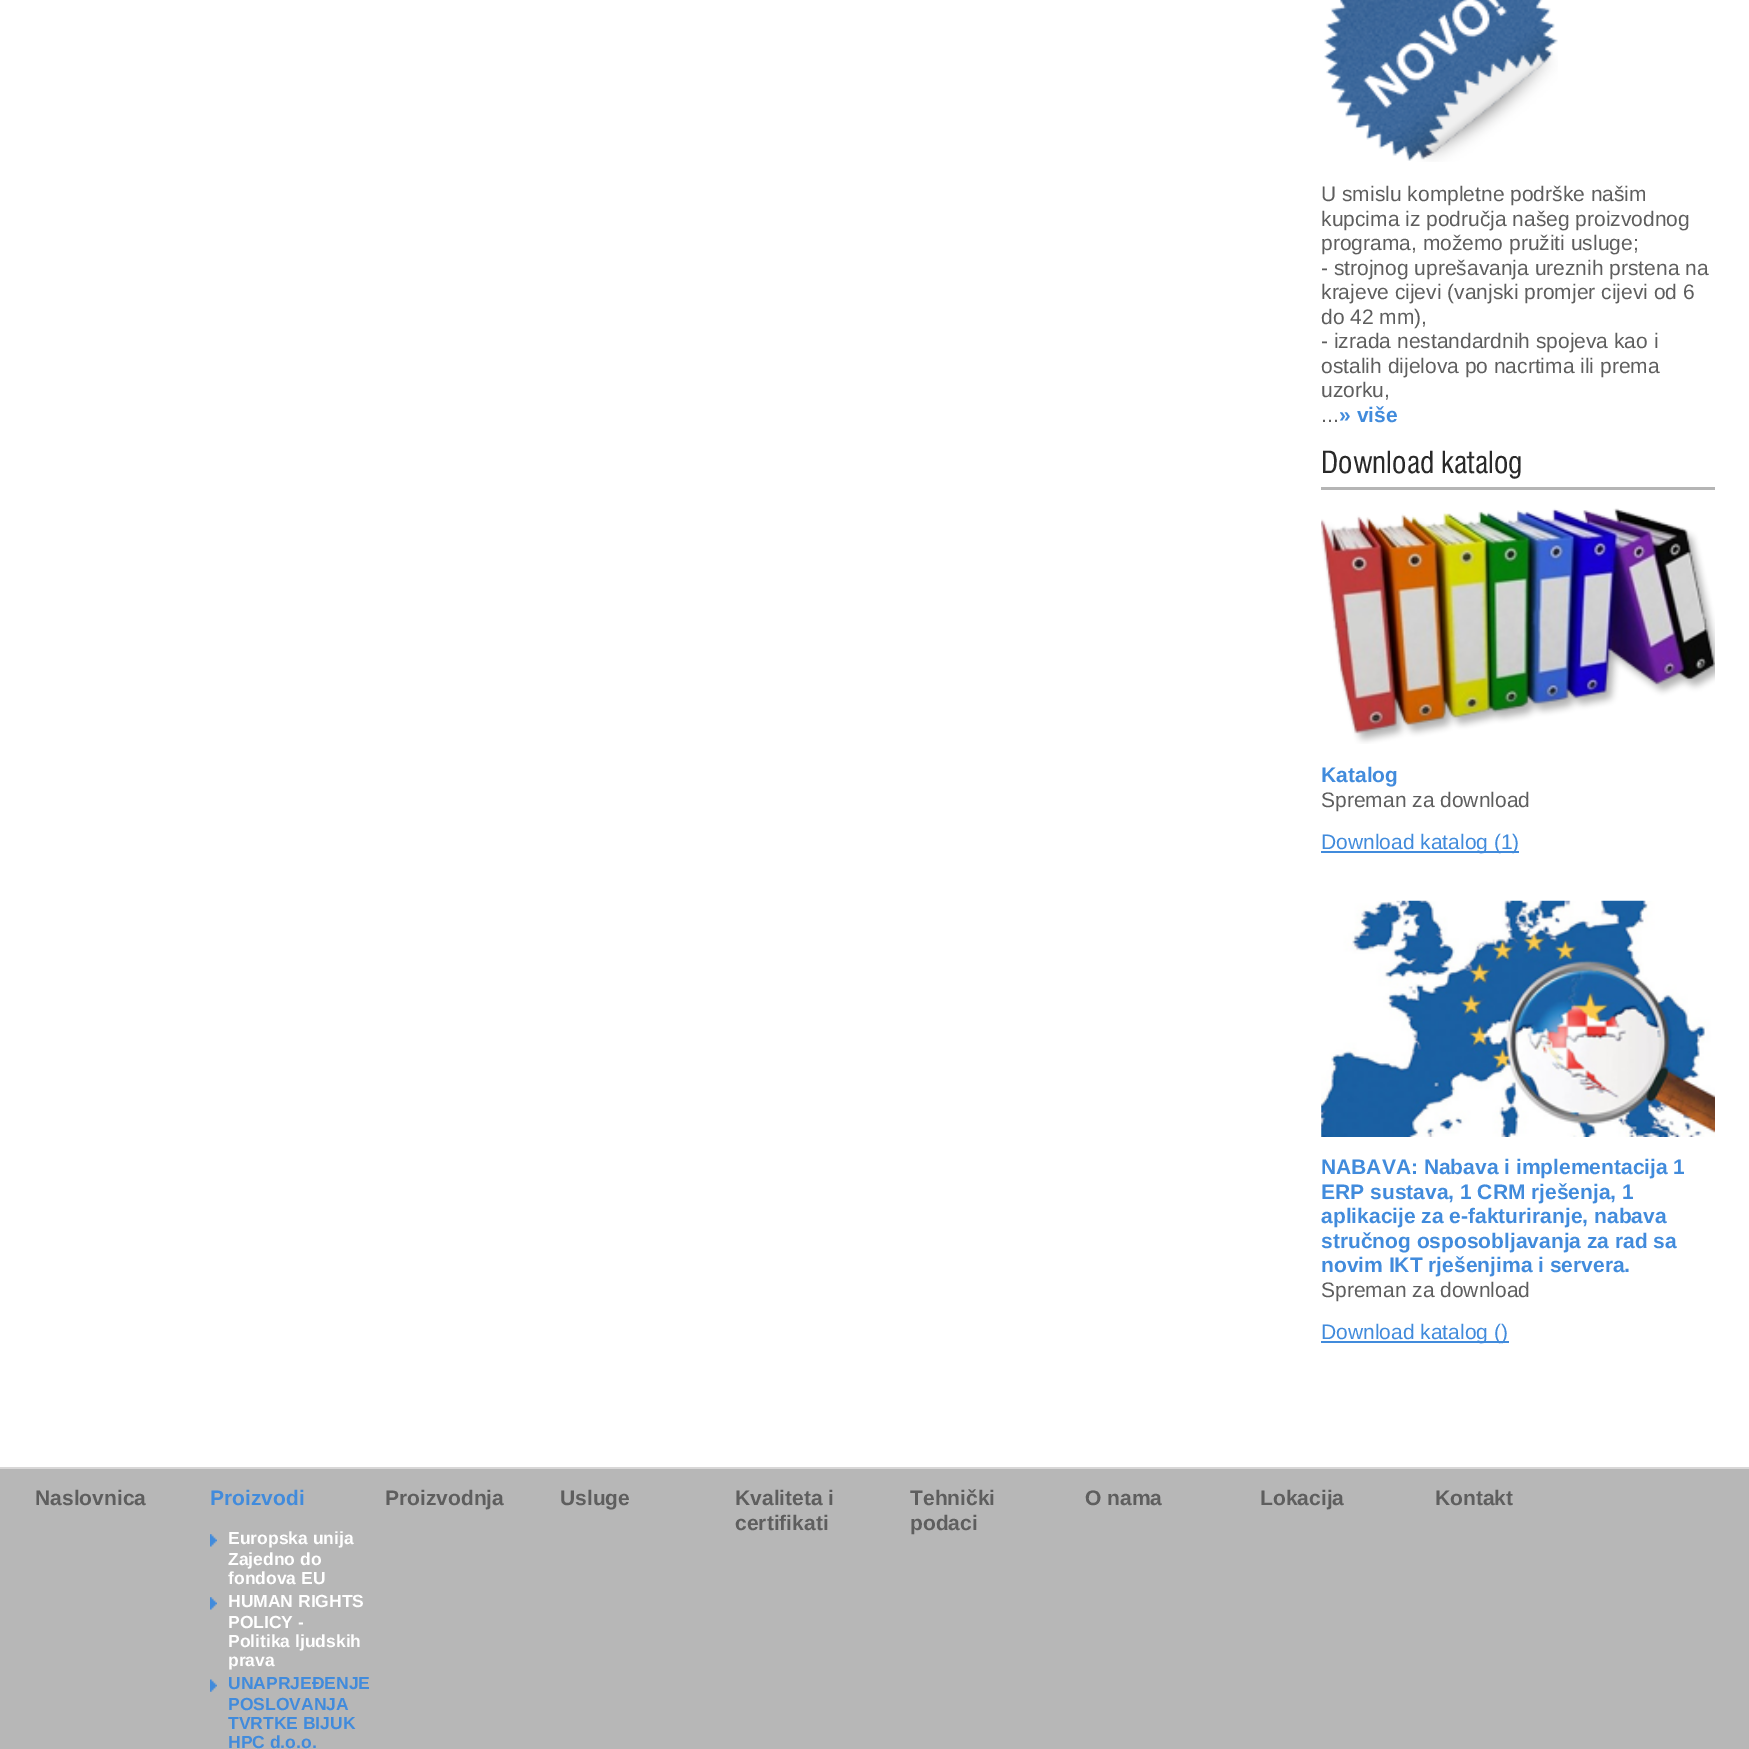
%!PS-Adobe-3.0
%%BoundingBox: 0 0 1749 1749
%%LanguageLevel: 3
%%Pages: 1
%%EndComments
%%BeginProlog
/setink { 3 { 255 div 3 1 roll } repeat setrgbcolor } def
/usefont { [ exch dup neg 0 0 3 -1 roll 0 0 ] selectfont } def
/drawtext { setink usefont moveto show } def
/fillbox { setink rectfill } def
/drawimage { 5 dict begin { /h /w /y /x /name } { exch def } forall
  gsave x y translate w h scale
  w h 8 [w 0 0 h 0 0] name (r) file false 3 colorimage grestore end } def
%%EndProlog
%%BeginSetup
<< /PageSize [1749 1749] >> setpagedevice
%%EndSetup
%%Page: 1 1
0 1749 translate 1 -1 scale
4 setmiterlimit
0 0 1749 1749 255 255 255 fillbox
(assets/img1.rgb) 1324 0 234 162 drawimage
(U smislu kompletne podrške našim) 1321 201 /LiberationSans-Regular 21 94 94 94 drawtext
(kupcima iz područja našeg proizvodnog) 1321 226 /LiberationSans-Regular 21 94 94 94 drawtext
(programa, možemo pružiti usluge;) 1321 250 /LiberationSans-Regular 21 94 94 94 drawtext
(- strojnog uprešavanja ureznih prstena na) 1321 275 /LiberationSans-Regular 21 94 94 94 drawtext
(krajeve cijevi \(vanjski promjer cijevi od 6) 1321 299 /LiberationSans-Regular 21 94 94 94 drawtext
(do 42 mm\),) 1321 324 /LiberationSans-Regular 21 94 94 94 drawtext
(- izrada nestandardnih spojeva kao i) 1321 348 /LiberationSans-Regular 21 94 94 94 drawtext
(ostalih dijelova po nacrtima ili prema) 1321 373 /LiberationSans-Regular 21 94 94 94 drawtext
(uzorku,) 1321 397 /LiberationSans-Regular 21 94 94 94 drawtext
(...) 1321 422 /LiberationSans-Regular 21 94 94 94 drawtext
(» više) 1339 422 /LiberationSans-Bold 21 65 139 220 drawtext
1321 487 394 3 181 181 181 fillbox
(Download katalog) 1321 473 /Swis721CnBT-Regular 29.75 41 41 41 drawtext
(assets/img2.rgb) 1321 508 394 236 drawimage
(Katalog) 1321 782 /LiberationSans-Bold 21 65 139 220 drawtext
(Spreman za download) 1321 807 /LiberationSans-Regular 21 94 94 94 drawtext
1321 851 198 2 65 139 220 fillbox
(Download katalog \(1\)) 1321 849 /LiberationSans-Regular 21 65 139 220 drawtext
(assets/img3.rgb) 1321 900 394 237 drawimage
(NABAVA: Nabava i implementacija 1) 1321 1174 /LiberationSans-Bold 21 65 139 220 drawtext
(ERP sustava, 1 CRM rješenja, 1) 1321 1199 /LiberationSans-Bold 21 65 139 220 drawtext
(aplikacije za e-fakturiranje, nabava) 1321 1223 /LiberationSans-Bold 21 65 139 220 drawtext
(stručnog osposobljavanja za rad sa) 1321 1248 /LiberationSans-Bold 21 65 139 220 drawtext
(novim IKT rješenjima i servera.) 1321 1272 /LiberationSans-Bold 21 65 139 220 drawtext
(Spreman za download) 1321 1297 /LiberationSans-Regular 21 94 94 94 drawtext
1321 1341 188 2 65 139 220 fillbox
(Download katalog \(\)) 1321 1339 /LiberationSans-Regular 21 65 139 220 drawtext
0 1469 1749 280 183 183 183 fillbox
0 1467 1749 2 216 215 215 fillbox
(Naslovnica) 35 1505 /LiberationSans-Bold 21 94 94 94 drawtext
(Proizvodi) 210 1505 /LiberationSans-Bold 21 65 139 220 drawtext
(assets/img4.rgb) 210 1534 7 13 drawimage
(Europska unija) 228 1544 /LiberationSans-Bold 17.5 255 255 255 drawtext
(Zajedno do) 228 1565 /LiberationSans-Bold 17.5 255 255 255 drawtext
(fondova EU) 228 1584 /LiberationSans-Bold 17.5 255 255 255 drawtext
(assets/img4.rgb) 210 1597 7 13 drawimage
(HUMAN RIGHTS) 228 1607 /LiberationSans-Bold 17.5 255 255 255 drawtext
(POLICY -) 228 1628 /LiberationSans-Bold 17.5 255 255 255 drawtext
(Politika ljudskih) 228 1647 /LiberationSans-Bold 17.5 255 255 255 drawtext
(prava) 228 1666 /LiberationSans-Bold 17.5 255 255 255 drawtext
(assets/img5.rgb) 210 1679 7 13 drawimage
(UNAPRJEĐENJE) 228 1689 /LiberationSans-Bold 17.5 65 139 220 drawtext
(POSLOVANJA) 228 1710 /LiberationSans-Bold 17.5 65 139 220 drawtext
(TVRTKE BIJUK) 228 1729 /LiberationSans-Bold 17.5 65 139 220 drawtext
(HPC d.o.o.) 228 1748 /LiberationSans-Bold 17.5 65 139 220 drawtext
(Proizvodnja) 385 1505 /LiberationSans-Bold 21 94 94 94 drawtext
(Usluge) 560 1505 /LiberationSans-Bold 21 94 94 94 drawtext
(Kvaliteta i) 735 1505 /LiberationSans-Bold 21 94 94 94 drawtext
(certifikati) 735 1530 /LiberationSans-Bold 21 94 94 94 drawtext
(Tehnički) 910 1505 /LiberationSans-Bold 21 94 94 94 drawtext
(podaci) 910 1530 /LiberationSans-Bold 21 94 94 94 drawtext
(O nama) 1085 1505 /LiberationSans-Bold 21 94 94 94 drawtext
(Lokacija) 1260 1505 /LiberationSans-Bold 21 94 94 94 drawtext
(Kontakt) 1435 1505 /LiberationSans-Bold 21 94 94 94 drawtext
showpage
%%EOF
